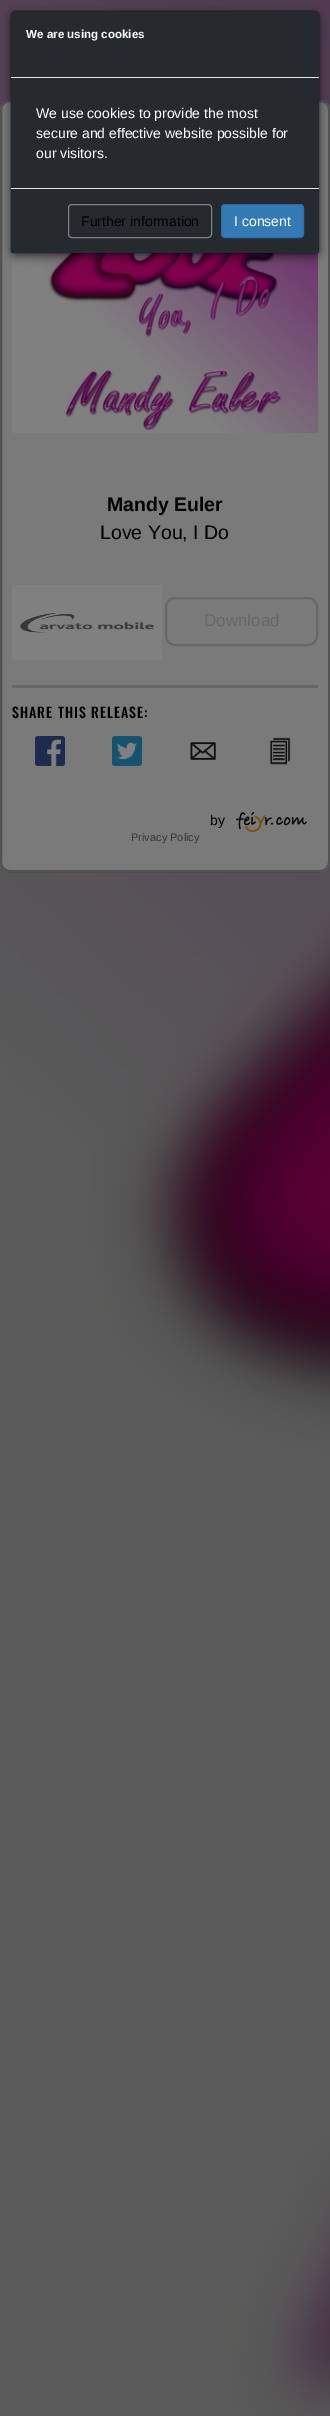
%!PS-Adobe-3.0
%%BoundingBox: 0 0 330 2416
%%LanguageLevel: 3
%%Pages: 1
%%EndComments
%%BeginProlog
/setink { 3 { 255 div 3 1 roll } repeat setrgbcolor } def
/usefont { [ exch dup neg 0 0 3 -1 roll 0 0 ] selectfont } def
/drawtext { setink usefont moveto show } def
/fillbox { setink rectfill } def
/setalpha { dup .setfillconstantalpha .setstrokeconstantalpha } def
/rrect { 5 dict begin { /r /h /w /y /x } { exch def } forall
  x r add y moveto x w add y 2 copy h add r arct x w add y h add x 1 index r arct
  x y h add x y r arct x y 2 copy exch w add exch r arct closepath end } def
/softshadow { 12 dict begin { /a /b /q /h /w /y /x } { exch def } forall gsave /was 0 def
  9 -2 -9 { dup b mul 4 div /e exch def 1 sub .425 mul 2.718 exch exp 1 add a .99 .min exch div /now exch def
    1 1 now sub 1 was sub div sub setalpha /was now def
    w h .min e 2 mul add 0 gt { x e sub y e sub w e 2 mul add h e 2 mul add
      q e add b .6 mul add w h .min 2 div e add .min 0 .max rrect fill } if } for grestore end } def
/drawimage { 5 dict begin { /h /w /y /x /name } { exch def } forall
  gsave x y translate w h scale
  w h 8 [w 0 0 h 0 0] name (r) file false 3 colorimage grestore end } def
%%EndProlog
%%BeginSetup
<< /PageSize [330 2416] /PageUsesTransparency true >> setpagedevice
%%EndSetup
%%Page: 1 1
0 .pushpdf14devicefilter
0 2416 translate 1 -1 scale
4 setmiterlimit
0 0 330 2416 255 255 255 fillbox
(assets/img1.rgb) 0 0 330 2416 drawimage
122 122 122 setink
0 100 330 772 10 rrect fill
0.32 setalpha
0 0 0 setink
2 setlinewidth
1 101 328 770 9 rrect stroke
1 setalpha
(assets/img2.rgb) 12 253 306 180 drawimage
10 13 310 244 6 4.5 0.5 softshadow
37 42 46 setink
11 11 308 242 5 rrect fill
0.2 setalpha
0 0 0 setink
1 setlinewidth
10.5 10.5 309 243 5.5 rrect stroke
1 setalpha
11 77 308 1 229 229 229 fillbox
(We are using cookies) 26 38 /LiberationSans-Bold 11.6 255 255 255 drawtext
(We use cookies to provide the most) 36 118 /LiberationSans-Regular 14 255 255 255 drawtext
(secure and effective website possible for) 36 138 /LiberationSans-Regular 14 255 255 255 drawtext
(our visitors.) 36 158 /LiberationSans-Regular 14 255 255 255 drawtext
11 249 308 4 37 42 46 fillbox
11 188 308 1 229 229 229 fillbox
128 128 128 setink
68.5 204.5 143 33 3.5 rrect stroke
(Further information) 81 226 /LiberationSans-Regular 14 0 0 0 drawtext
51 122 183 setink
221.5 204.5 82 33 3.5 rrect gsave fill grestore
46 109 164 setink
stroke
(I consent) 234 226 /LiberationSans-Regular 14 255 255 255 drawtext
(Mandy Euler) 107 511 /LiberationSans-Bold 19.5 0 0 0 drawtext
(Love You, I Do) 100 539 /LiberationSans-Regular 19.5 0 0 0 drawtext
(assets/img3.rgb) 12 585 150 75 drawimage
103 103 103 setink
2 setlinewidth
166 598 151 47 9 rrect stroke
(Download) 204 626 /LiberationSans-Regular 17 103 103 103 drawtext
12 685 306 3 103 103 103 fillbox
/Oswald-Medium 14 usefont
0 0 0 setink
12 718 moveto 1 0 (SHARE THIS RELEASE:) ashow
(assets/img4.rgb) 35 736 30 30 drawimage
(assets/img5.rgb) 112 736 30 30 drawimage
(assets/img6.rgb) 190 742 26 18 drawimage
(assets/img7.rgb) 269 737 22 28 drawimage
(by) 210 825 /LiberationSans-Regular 14 0 0 0 drawtext
(assets/img8.rgb) 236 812 71 20 drawimage
(Privacy Policy) 131 841 /LiberationSans-Regular 11 55 55 55 drawtext
.poppdf14devicefilter showpage
%%EOF
